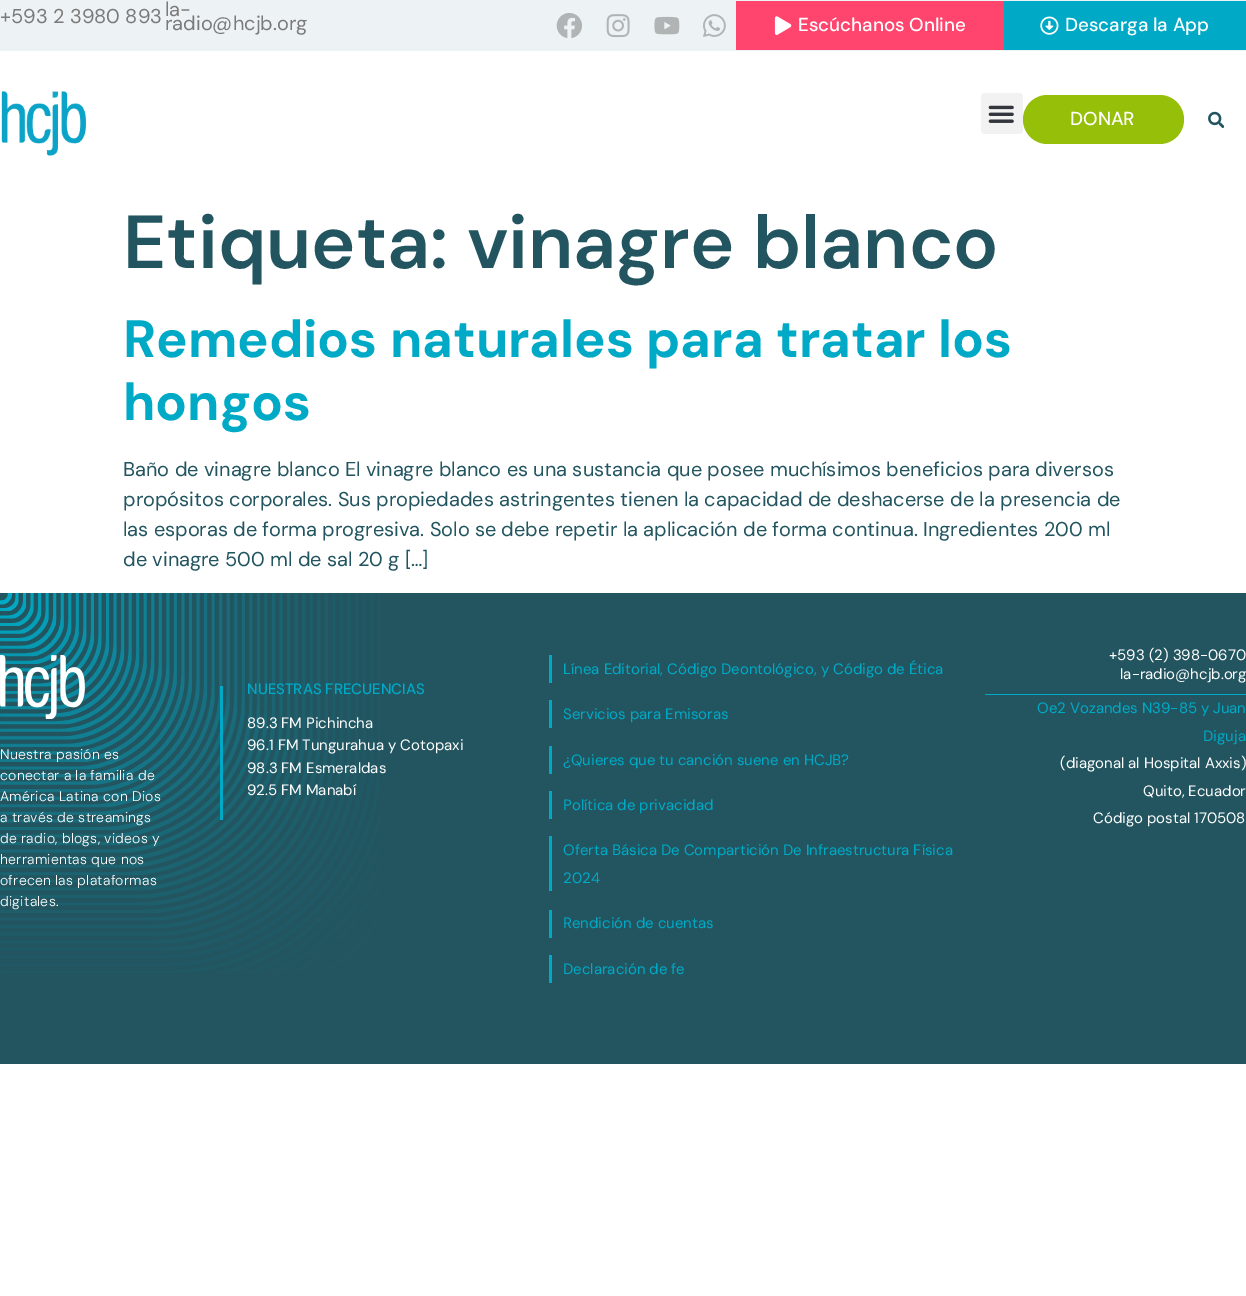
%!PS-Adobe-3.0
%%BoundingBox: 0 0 1246 1296
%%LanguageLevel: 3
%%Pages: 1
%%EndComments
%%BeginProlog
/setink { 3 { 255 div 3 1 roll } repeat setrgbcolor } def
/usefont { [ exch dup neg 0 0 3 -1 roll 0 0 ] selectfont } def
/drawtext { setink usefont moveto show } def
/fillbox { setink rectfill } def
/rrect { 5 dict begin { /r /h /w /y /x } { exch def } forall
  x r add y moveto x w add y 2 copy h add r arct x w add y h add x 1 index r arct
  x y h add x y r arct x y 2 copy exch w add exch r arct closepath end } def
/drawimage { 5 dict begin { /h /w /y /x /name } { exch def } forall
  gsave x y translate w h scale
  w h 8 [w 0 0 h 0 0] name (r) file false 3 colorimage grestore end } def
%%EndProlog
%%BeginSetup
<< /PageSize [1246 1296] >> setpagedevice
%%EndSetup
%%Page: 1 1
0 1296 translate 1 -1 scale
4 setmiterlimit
0 0 1246 1296 255 255 255 fillbox
0 0 1246 51 237 243 244 fillbox
(+593 2 3980 893) 0 23 /DMSans-Regular 20 122 122 122 drawtext
(la-) 165 16 /DMSans-Regular 20 122 122 122 drawtext
(radio@hcjb.org) 165 30 /DMSans-Regular 20 122 122 122 drawtext
(assets/img1.rgb) 556 13 26 26 drawimage
(assets/img2.rgb) 606 14 24 24 drawimage
(assets/img3.rgb) 654 16 26 19 drawimage
(assets/img4.rgb) 703 14 23 23 drawimage
736 1 268 49 255 69 109 fillbox
(assets/img5.rgb) 774 16 18 19 drawimage
(Escúchanos Online) 798 31 /DMSans-Medium 18.75 255 255 255 drawtext
1004 1 242 49 0 170 198 fillbox
(assets/img6.rgb) 1040 16 19 19 drawimage
(Descarga la App) 1065 31 /DMSans-Medium 18.75 255 255 255 drawtext
(assets/img7.rgb) 1 91 85 65 drawimage
242 242 242 setink
981 93 42 41 4 rrect fill
(assets/img8.rgb) 988 105 26 18 drawimage
150 191 9 setink
1023 95 161 49 24.5 rrect fill
(DONAR) 1070 125 /DMSans-Medium 18.75 255 255 255 drawtext
(assets/img9.rgb) 1208 111 16 17 drawimage
(Etiqueta: vinagre blanco) 123 268 /DMSans-SemiBold 75 34 85 96 drawtext
(Remedios naturales para tratar los) 123 357 /DMSans-Bold 52.5 0 170 198 drawtext
(hongos) 123 420 /DMSans-Bold 52.5 0 170 198 drawtext
(Baño de vinagre blanco El vinagre blanco es una sustancia que posee muchísimos beneficios para diversos) 123 476 /DMSans-Regular 20 34 85 96 drawtext
(propósitos corporales. Sus propiedades astringentes tienen la capacidad de deshacerse de la presencia de) 123 506 /DMSans-Regular 20 34 85 96 drawtext
(las esporas de forma progresiva. Solo se debe repetir la aplicación de forma continua. Ingredientes 200 ml) 123 536 /DMSans-Regular 20 34 85 96 drawtext
(de vinagre 500 ml de sal 20 g […]) 123 566 /DMSans-Regular 20 34 85 96 drawtext
0 593 1246 471 34 85 96 fillbox
(assets/img10.rgb) 0 593 380 380 drawimage
(assets/img11.rgb) 0 655 85 64 drawimage
/DMSans-Light 14 usefont
255 255 255 setink
0 759 moveto 0.25 0 (Nuestra pasión es) ashow
0 780 moveto 0.25 0 (conectar a la familia de) ashow
0 801 moveto 0.25 0 (América Latina con Dios) ashow
0 822 moveto 0.25 0 (a través de streamings) ashow
0 843 moveto 0.25 0 (de radio, blogs, videos y) ashow
0 864 moveto 0.25 0 (herramientas que nos) ashow
0 885 moveto 0.25 0 (ofrecen las plataformas) ashow
0 906 moveto 0.25 0 (digitales.) ashow
220 686 3 134 0 170 198 fillbox
(NUESTRAS FRECUENCIAS) 247 694 /DMSans-Medium 15 0 170 198 drawtext
(89.3 FM Pichincha) 247 728 /DMSans-Regular 15 255 255 255 drawtext
(96.1 FM Tungurahua y Cotopaxi) 247 750 /DMSans-Regular 15 255 255 255 drawtext
(98.3 FM Esmeraldas) 247 773 /DMSans-Regular 15 255 255 255 drawtext
(92.5 FM Manabí) 247 795 /DMSans-Regular 15 255 255 255 drawtext
549 655 3 28 0 170 198 fillbox
(Línea Editorial, Código Deontológico, y Código de Ética) 563 674 /DMSans-Regular 15 0 170 198 drawtext
549 700 3 28 0 170 198 fillbox
(Servicios para Emisoras) 563 719 /DMSans-Regular 15 0 170 198 drawtext
549 746 3 28 0 170 198 fillbox
(¿Quieres que tu canción suene en HCJB?) 563 765 /DMSans-Regular 15 0 170 198 drawtext
549 791 3 28 0 170 198 fillbox
(Política de privacidad) 563 810 /DMSans-Regular 15 0 170 198 drawtext
549 836 3 55 0 170 198 fillbox
(Oferta Básica De Compartición De Infraestructura Física) 563 855 /DMSans-Regular 15 0 170 198 drawtext
(2024) 563 883 /DMSans-Regular 15 0 170 198 drawtext
549 910 3 28 0 170 198 fillbox
(Rendición de cuentas) 563 928 /DMSans-Regular 15 0 170 198 drawtext
549 955 3 28 0 170 198 fillbox
(Declaración de fe) 563 974 /DMSans-Regular 15 0 170 198 drawtext
(+593 \(2\) 398-0670) 1109 660 /DMSans-Regular 15 255 255 255 drawtext
(la-radio@hcjb.org) 1120 679 /DMSans-Regular 15 255 255 255 drawtext
985 694 261 1 0 170 198 fillbox
(Oe2 Vozandes N39-85 y Juan) 1037 713 /DMSans-Regular 15 0 170 198 drawtext
(Diguja) 1203 741 /DMSans-Regular 15 0 170 198 drawtext
(\(diagonal al Hospital Axxis\)) 1060 768 /DMSans-Regular 15 255 255 255 drawtext
(Quito, Ecuador) 1143 796 /DMSans-Regular 15 255 255 255 drawtext
(Código postal 170508) 1093 823 /DMSans-Regular 15 255 255 255 drawtext
showpage
%%EOF
